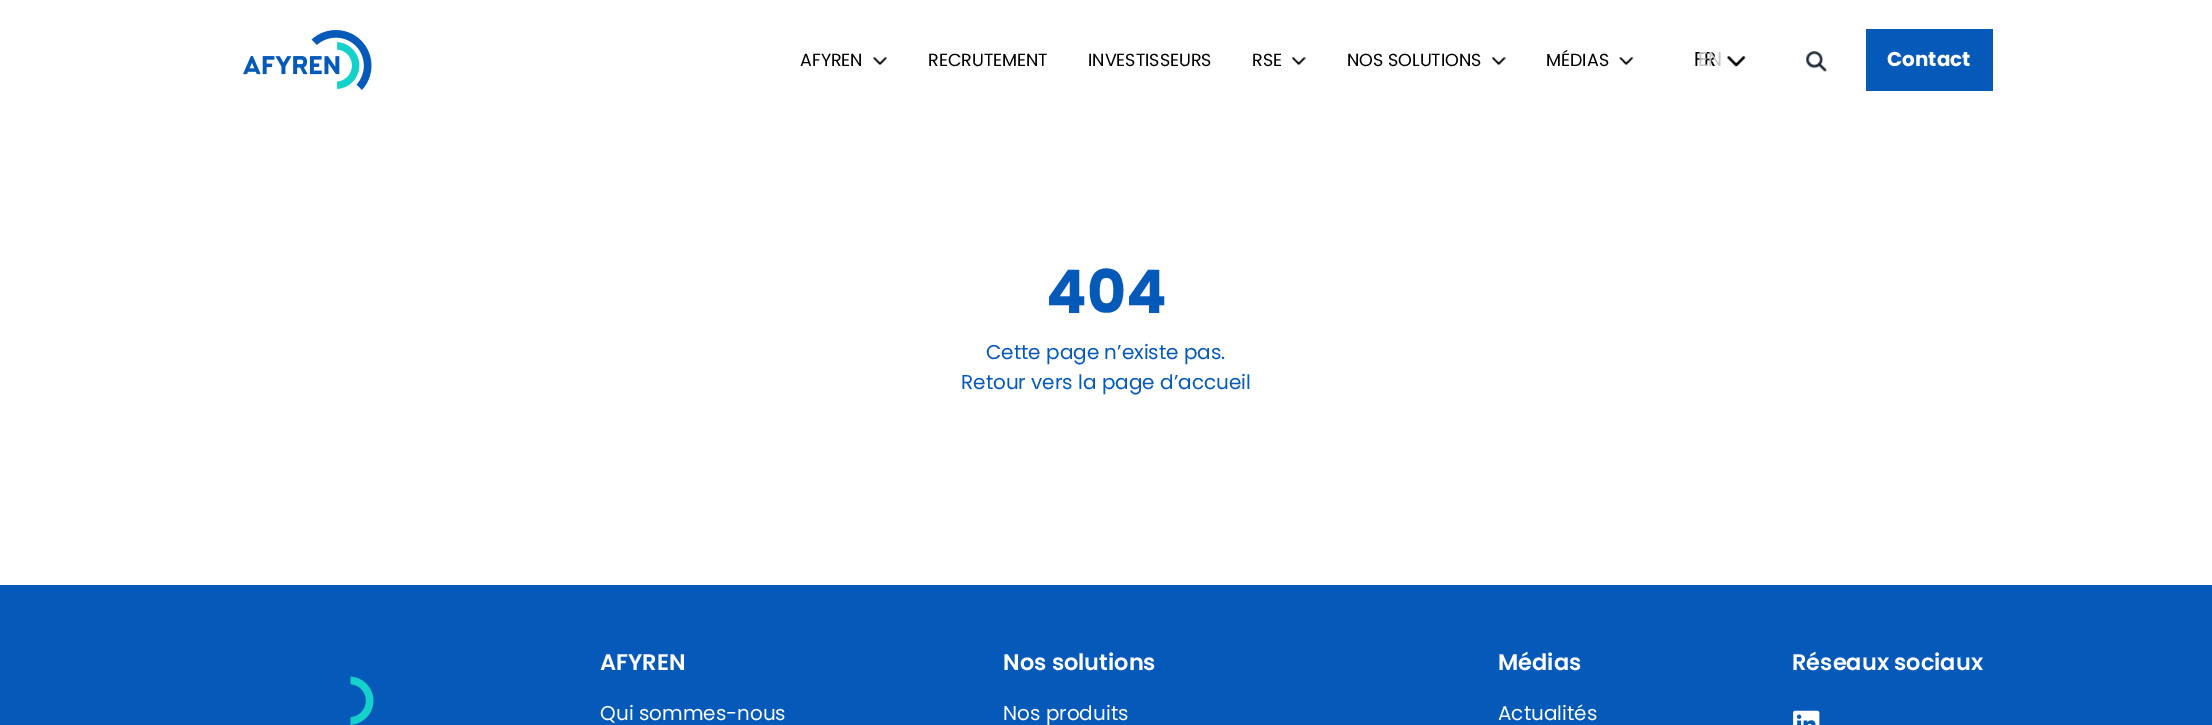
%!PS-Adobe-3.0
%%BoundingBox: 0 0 2212 725
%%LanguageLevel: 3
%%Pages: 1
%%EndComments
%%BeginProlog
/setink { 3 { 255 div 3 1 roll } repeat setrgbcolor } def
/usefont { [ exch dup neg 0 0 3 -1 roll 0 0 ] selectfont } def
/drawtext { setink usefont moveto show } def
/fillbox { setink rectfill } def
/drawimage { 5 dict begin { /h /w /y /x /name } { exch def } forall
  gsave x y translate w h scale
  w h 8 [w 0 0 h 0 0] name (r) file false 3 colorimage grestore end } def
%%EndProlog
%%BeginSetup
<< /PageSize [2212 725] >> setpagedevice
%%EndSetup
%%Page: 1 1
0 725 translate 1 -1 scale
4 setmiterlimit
0 0 2212 725 255 255 255 fillbox
(assets/img1.rgb) 243 30 129 60 drawimage
(AFYREN) 800 66 /Poppins-Regular 17.5 0 0 0 drawtext
(assets/img2.rgb) 873 57 14 8 drawimage
(RECRUTEMENT) 928 66 /Poppins-Regular 17.5 0 0 0 drawtext
(INVESTISSEURS) 1088 66 /Poppins-Regular 17.5 0 0 0 drawtext
(RSE) 1252 66 /Poppins-Regular 17.5 0 0 0 drawtext
(assets/img3.rgb) 1291 57 15 8 drawimage
(NOS SOLUTIONS) 1347 66 /Poppins-Regular 17.5 0 0 0 drawtext
(assets/img3.rgb) 1491 57 15 8 drawimage
(MÉDIAS) 1546 66 /Poppins-Regular 17.5 0 0 0 drawtext
(assets/img4.rgb) 1619 57 15 8 drawimage
(FR) 1694 66 /Poppins-Regular 20 0 0 0 drawtext
(assets/img5.rgb) 1727 56 19 11 drawimage
(EN) 1698 66 /Poppins-Regular 20 196 196 196 drawtext
(assets/img6.rgb) 1806 51 21 21 drawimage
1866 29 127 62 4 89 185 fillbox
(Contact) 1887 66 /Poppins-Bold 20 255 255 255 drawtext
(404) 1046 313 /Poppins-Bold 60 4 89 185 drawtext
(Cette page n’existe pas.) 986 359 /Poppins-Regular 20 4 89 185 drawtext
(Retour vers la page d’accueil) 961 389 /Poppins-Regular 20 4 89 185 drawtext
0 585 2212 140 4 89 185 fillbox
(assets/img7.rgb) 350 676 24 49 drawimage
(AFYREN) 600 670 /Poppins-SemiBold 22.5 255 255 255 drawtext
(Qui sommes-nous) 600 720 /Poppins-Regular 20 255 255 255 drawtext
(Nos solutions) 1003 670 /Poppins-SemiBold 22.5 255 255 255 drawtext
(Nos produits) 1003 720 /Poppins-Regular 20 255 255 255 drawtext
(Médias) 1498 670 /Poppins-SemiBold 22.5 255 255 255 drawtext
(Actualités) 1498 720 /Poppins-Regular 20 255 255 255 drawtext
(Réseaux sociaux) 1792 670 /Poppins-SemiBold 22.5 255 255 255 drawtext
(assets/img8.rgb) 1793 710 27 15 drawimage
showpage
%%EOF
